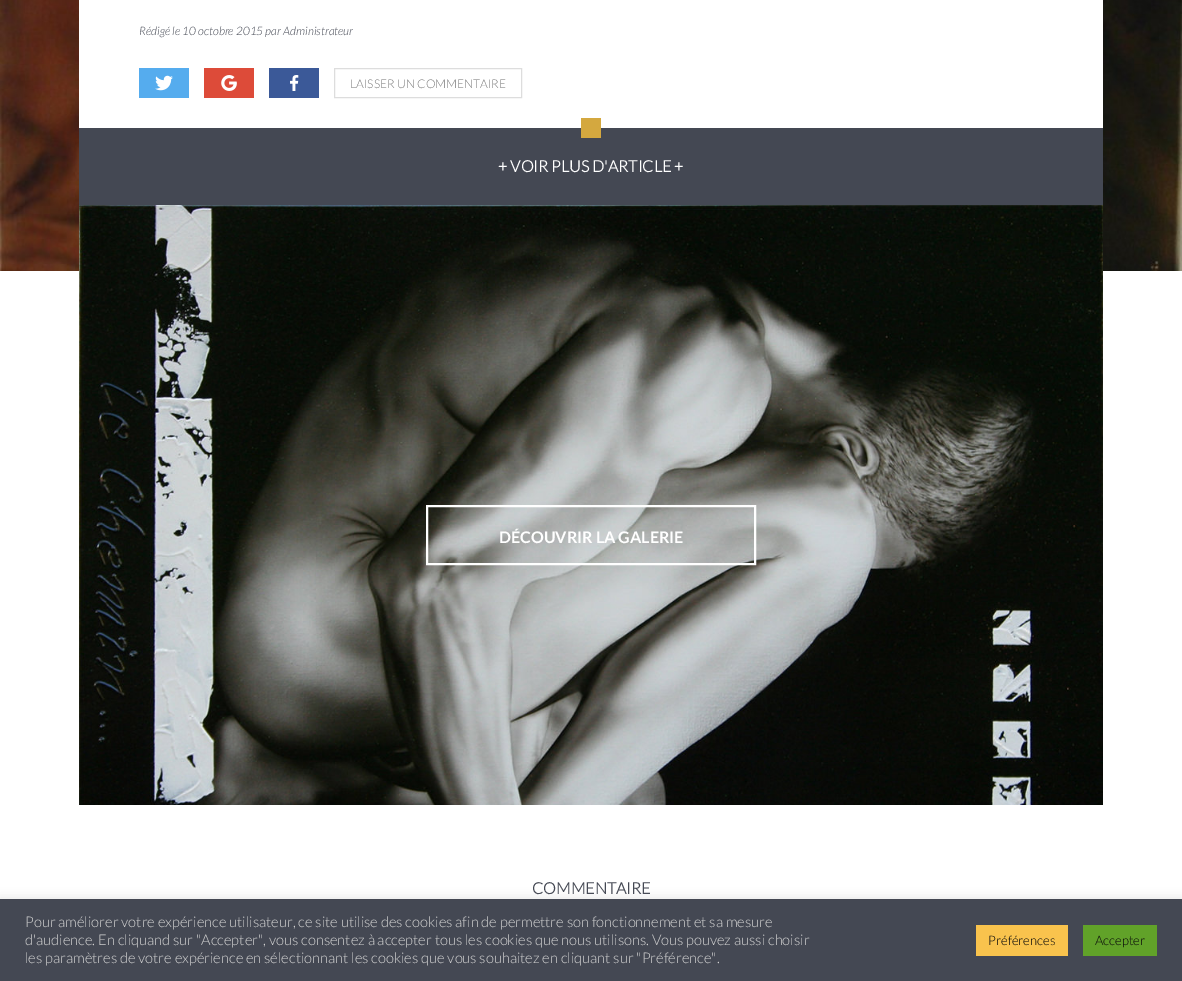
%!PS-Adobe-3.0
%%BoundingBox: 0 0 1182 981
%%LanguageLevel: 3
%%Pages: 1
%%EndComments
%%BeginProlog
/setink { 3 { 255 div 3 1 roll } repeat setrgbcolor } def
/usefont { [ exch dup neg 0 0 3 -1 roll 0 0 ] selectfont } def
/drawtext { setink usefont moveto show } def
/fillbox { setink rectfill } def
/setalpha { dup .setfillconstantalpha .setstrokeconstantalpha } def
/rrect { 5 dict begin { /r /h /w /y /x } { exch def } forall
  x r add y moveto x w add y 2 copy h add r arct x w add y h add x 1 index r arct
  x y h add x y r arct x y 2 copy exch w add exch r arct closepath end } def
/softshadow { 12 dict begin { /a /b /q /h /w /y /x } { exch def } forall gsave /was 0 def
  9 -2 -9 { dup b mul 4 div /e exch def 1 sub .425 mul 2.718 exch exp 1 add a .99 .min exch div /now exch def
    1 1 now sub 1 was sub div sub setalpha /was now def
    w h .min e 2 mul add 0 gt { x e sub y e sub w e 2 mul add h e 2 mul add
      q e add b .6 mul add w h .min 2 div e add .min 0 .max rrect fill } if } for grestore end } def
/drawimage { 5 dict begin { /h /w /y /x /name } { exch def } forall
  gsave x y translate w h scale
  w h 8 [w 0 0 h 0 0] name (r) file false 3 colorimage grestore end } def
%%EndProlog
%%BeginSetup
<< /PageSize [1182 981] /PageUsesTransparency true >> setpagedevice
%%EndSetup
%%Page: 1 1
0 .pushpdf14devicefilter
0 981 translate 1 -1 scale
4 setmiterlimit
0 0 1182 981 255 255 255 fillbox
(assets/img1.rgb) 0 0 1182 271 drawimage
79 0 1024 128 255 255 255 fillbox
(Rédigé le 10 octobre 2015 par Administrateur) 139 35 /Lato-LightItalic 11.7 68 72 83 drawtext
139 68 50 30 85 172 238 fillbox
(assets/img2.rgb) 155 75 18 16 drawimage
204 68 50 30 221 75 57 fillbox
(assets/img3.rgb) 221 75 16 16 drawimage
269 68 50 30 59 89 152 fillbox
(assets/img4.rgb) 290 75 9 16 drawimage
221 221 221 setink
334.5 68.5 187 29 rectstroke
(LAISSER UN COMMENTAIRE) 350 88 /Lato-Light 12 119 119 119 drawtext
79 128 1024 77 68 72 83 fillbox
581 118 20 20 212 168 63 fillbox
(+ VOIR PLUS D'ARTICLE +) 498 172 /Lato-Bold 16 255 255 255 drawtext
(assets/img5.rgb) 79 205 1024 600 drawimage
2 setlinewidth
427 506 328 58 rectstroke
(DÉCOUVRIR LA GALERIE) 499 543 /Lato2-Bold 16 255 255 255 drawtext
(COMMENTAIRE) 532 894 /Lato-Bold 16 68 72 83 drawtext
172 171 171 setink
0 898 1182 82 0 5 0.3 softshadow
0 899 1182 82 68 72 83 fillbox
(Pour améliorer votre expérience utilisateur, ce site utilise des cookies afin de permettre son fonctionnement et sa mesure) 25 927 /Lato-Light 14.67 209 209 209 drawtext
(d'audience. En cliquand sur "Accepter", vous consentez à accepter tous les cookies que nous utilisons. Vous pouvez aussi choisir) 25 945 /Lato-Light 14.67 209 209 209 drawtext
(les paramètres de votre expérience en sélectionnant les cookies que vous souhaitez en cliquant sur "Préférence".) 25 963 /Lato-Light 14.67 209 209 209 drawtext
976 925 92 31 249 195 77 fillbox
(Préférences) 988 945 /Lato-Light 13 10 10 10 drawtext
1083 925 74 31 97 162 41 fillbox
(Accepter) 1095 945 /Lato-Light 13 10 10 10 drawtext
.poppdf14devicefilter showpage
%%EOF
